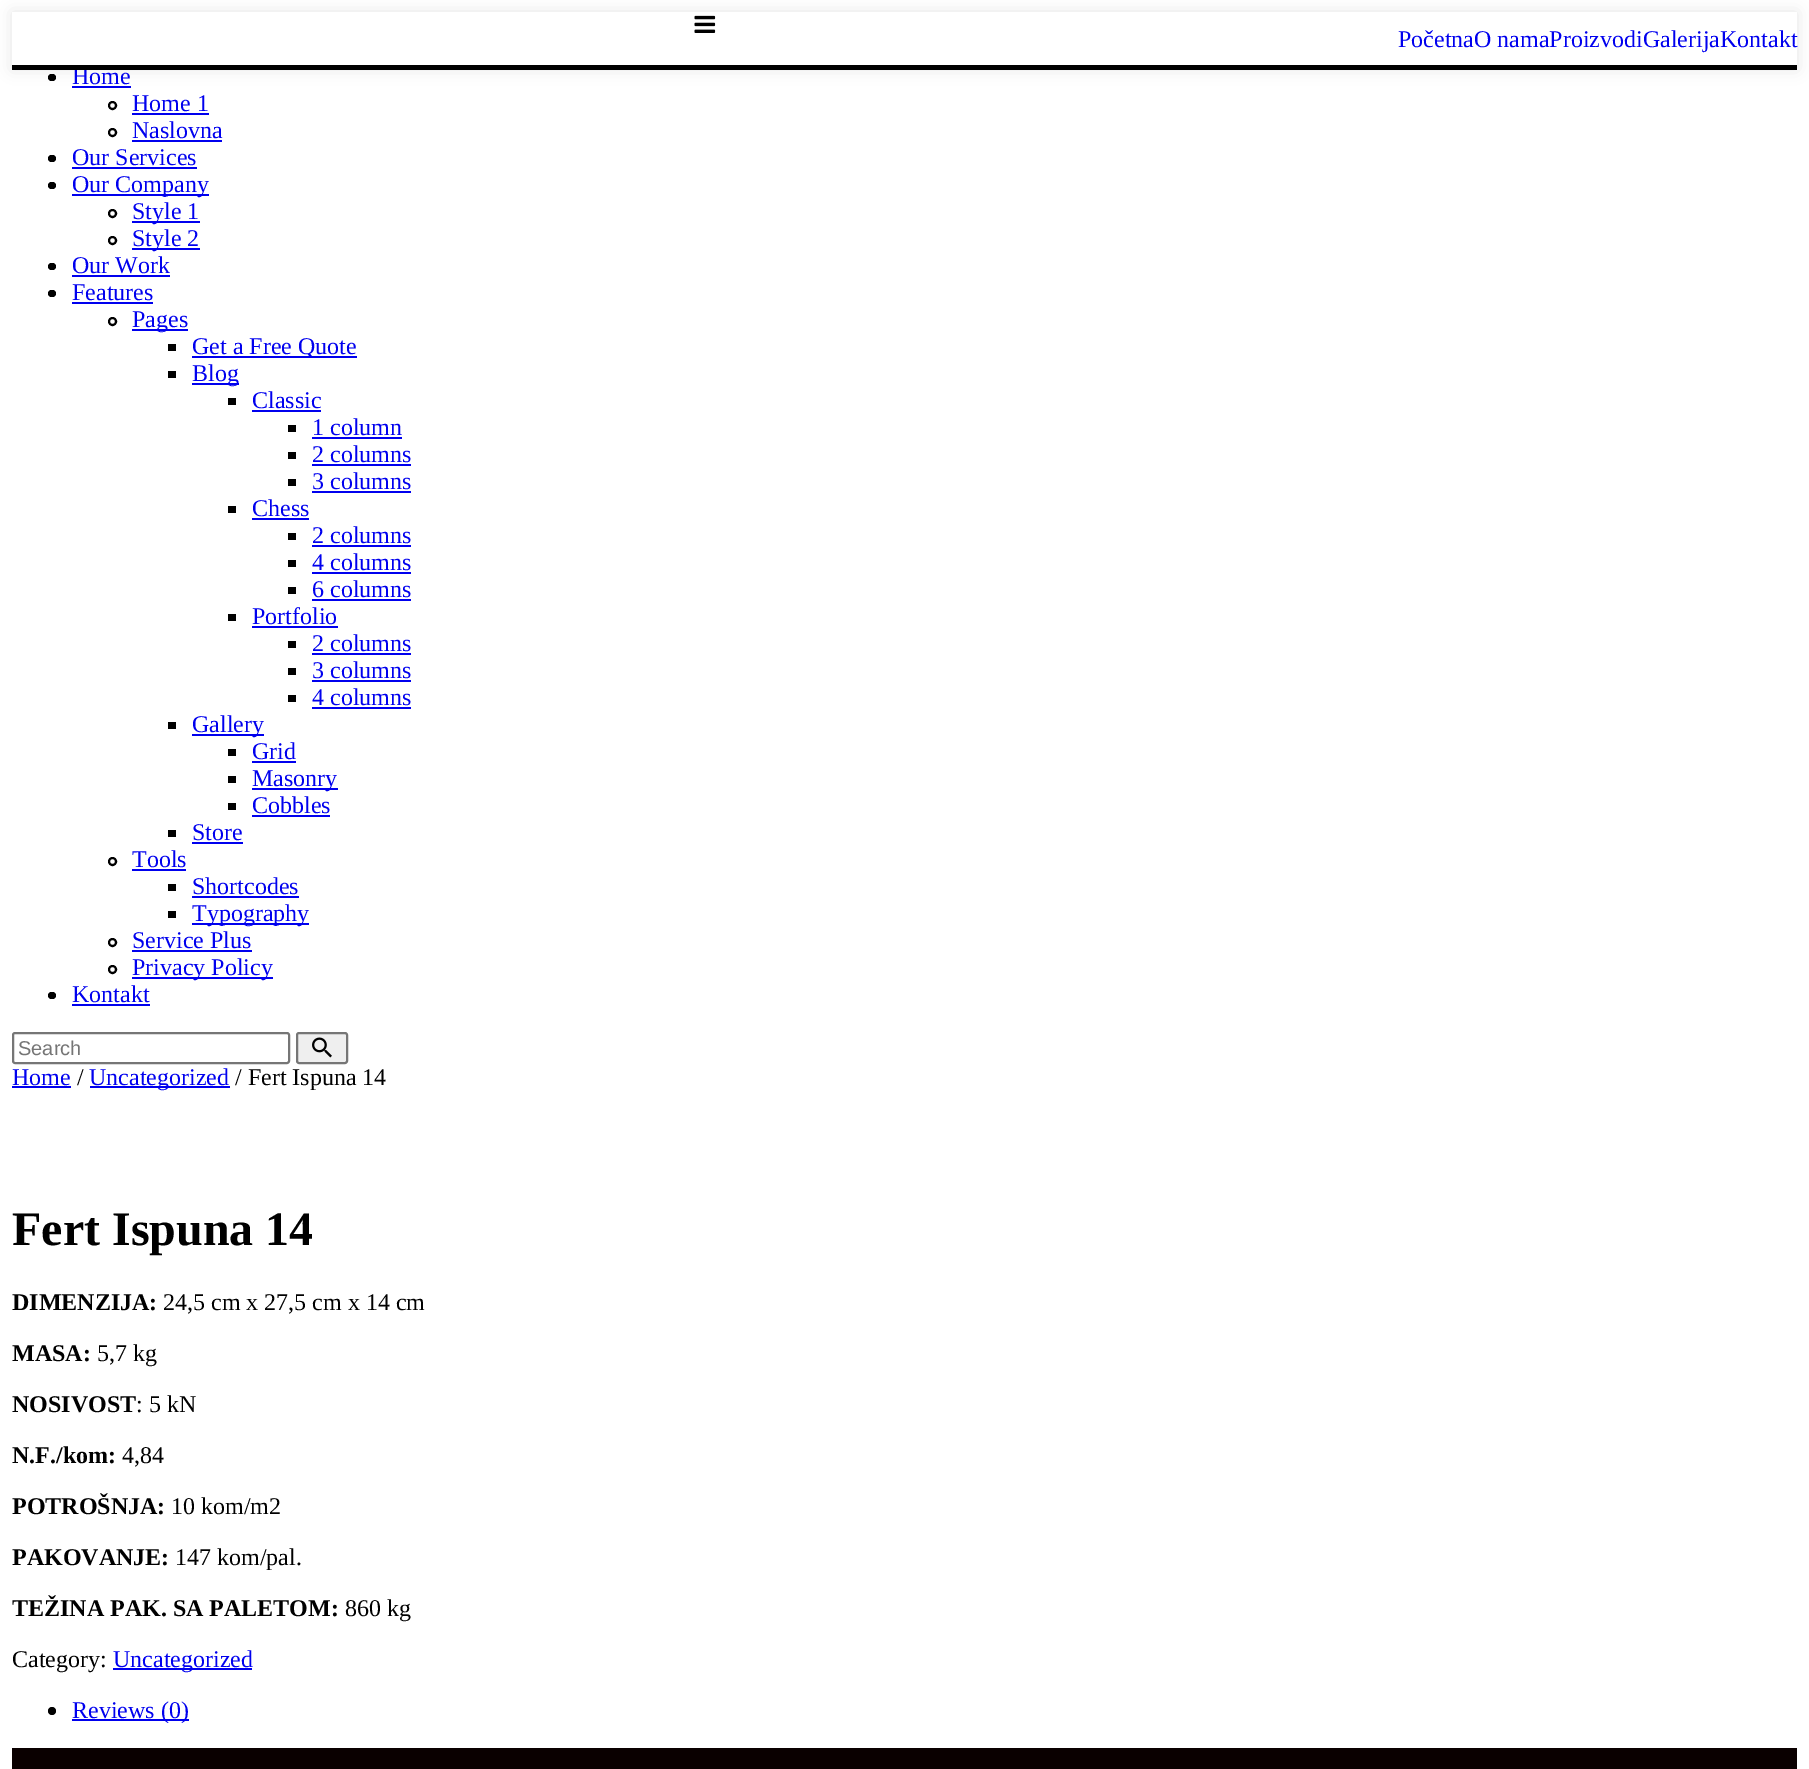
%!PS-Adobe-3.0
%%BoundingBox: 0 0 1809 1769
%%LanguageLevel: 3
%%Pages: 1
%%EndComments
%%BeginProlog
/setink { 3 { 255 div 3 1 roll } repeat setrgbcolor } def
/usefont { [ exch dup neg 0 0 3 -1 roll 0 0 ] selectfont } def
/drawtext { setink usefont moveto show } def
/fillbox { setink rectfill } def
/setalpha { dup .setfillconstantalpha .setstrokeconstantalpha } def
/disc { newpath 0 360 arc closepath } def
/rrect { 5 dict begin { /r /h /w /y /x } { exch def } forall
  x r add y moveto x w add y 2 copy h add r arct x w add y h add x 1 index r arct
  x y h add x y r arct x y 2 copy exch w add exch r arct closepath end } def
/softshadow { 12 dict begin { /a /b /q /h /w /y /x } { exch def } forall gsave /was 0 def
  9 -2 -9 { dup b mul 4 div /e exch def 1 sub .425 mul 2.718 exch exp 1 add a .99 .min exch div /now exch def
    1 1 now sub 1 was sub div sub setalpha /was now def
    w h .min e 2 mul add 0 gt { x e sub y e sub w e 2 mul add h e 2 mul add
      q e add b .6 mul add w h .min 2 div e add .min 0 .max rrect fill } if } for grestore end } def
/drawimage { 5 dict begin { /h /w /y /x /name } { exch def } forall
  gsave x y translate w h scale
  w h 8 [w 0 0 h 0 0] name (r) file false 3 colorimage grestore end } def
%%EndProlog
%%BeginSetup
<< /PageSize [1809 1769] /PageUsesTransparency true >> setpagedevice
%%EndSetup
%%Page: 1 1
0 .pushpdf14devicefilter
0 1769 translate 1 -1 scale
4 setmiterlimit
0 0 1809 1769 255 255 255 fillbox
0 0 0 setink
48 74 8 7 3.5 rrect fill
72 86 59 2 0 0 238 fillbox
gsave
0 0 moveto 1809 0 lineto 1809 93 lineto 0 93 lineto closepath 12 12 moveto 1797 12 lineto 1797 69 lineto 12 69 lineto closepath eoclip newpath
0 0 0 setink
12 12 1785 57 0 7.5 0.1 softshadow
grestore
(Home) 72 84 /LiberationSerif-Regular 24 0 0 238 drawtext
12 65 1785 5 0 0 0 fillbox
(assets/img1.rgb) 694 15 22 18 drawimage
(PočetnaO namaProizvodiGalerijaKontakt) 1398 47 /LiberationSerif-Regular 24 0 0 238 drawtext
0 0 0 setink
2 setlinewidth
112.5 105.5 3.5 disc stroke
(Home 1) 132 111 /LiberationSerif-Regular 24 0 0 238 drawtext
132 113 77 2 0 0 238 fillbox
0 0 0 setink
112.5 132.5 3.5 disc stroke
(Naslovna) 132 138 /LiberationSerif-Regular 24 0 0 238 drawtext
132 140 90 2 0 0 238 fillbox
0 0 0 setink
48 155 8 7 3.5 rrect fill
(Our Services) 72 165 /LiberationSerif-Regular 24 0 0 238 drawtext
72 167 125 2 0 0 238 fillbox
0 0 0 setink
48 182 8 7 3.5 rrect fill
72 194 137 2 0 0 238 fillbox
(Our Company) 72 192 /LiberationSerif-Regular 24 0 0 238 drawtext
0 0 0 setink
112.5 213.5 3.5 disc stroke
132 221 68 2 0 0 238 fillbox
(Style 1) 132 219 /LiberationSerif-Regular 24 0 0 238 drawtext
0 0 0 setink
112.5 240.5 3.5 disc stroke
132 248 68 2 0 0 238 fillbox
(Style 2) 132 246 /LiberationSerif-Regular 24 0 0 238 drawtext
0 0 0 setink
48 263 8 7 3.5 rrect fill
(Our Work) 72 273 /LiberationSerif-Regular 24 0 0 238 drawtext
72 275 98 2 0 0 238 fillbox
0 0 0 setink
48 290 8 7 3.5 rrect fill
(Features) 72 300 /LiberationSerif-Regular 24 0 0 238 drawtext
72 302 81 2 0 0 238 fillbox
0 0 0 setink
112.5 321.5 3.5 disc stroke
132 329 56 2 0 0 238 fillbox
(Pages) 132 327 /LiberationSerif-Regular 24 0 0 238 drawtext
168 344 8 7 0 0 0 fillbox
192 356 165 2 0 0 238 fillbox
(Get a Free Quote) 192 354 /LiberationSerif-Regular 24 0 0 238 drawtext
168 371 8 7 0 0 0 fillbox
192 383 47 2 0 0 238 fillbox
(Blog) 192 381 /LiberationSerif-Regular 24 0 0 238 drawtext
228 398 8 7 0 0 0 fillbox
(Classic) 252 408 /LiberationSerif-Regular 24 0 0 238 drawtext
252 410 69 2 0 0 238 fillbox
288 425 8 7 0 0 0 fillbox
(1 column) 312 435 /LiberationSerif-Regular 24 0 0 238 drawtext
312 437 90 2 0 0 238 fillbox
288 452 8 7 0 0 0 fillbox
(2 columns) 312 462 /LiberationSerif-Regular 24 0 0 238 drawtext
312 464 99 2 0 0 238 fillbox
288 479 8 7 0 0 0 fillbox
(3 columns) 312 489 /LiberationSerif-Regular 24 0 0 238 drawtext
312 491 99 2 0 0 238 fillbox
228 506 8 7 0 0 0 fillbox
(Chess) 252 516 /LiberationSerif-Regular 24 0 0 238 drawtext
252 518 57 2 0 0 238 fillbox
288 533 8 7 0 0 0 fillbox
(2 columns) 312 543 /LiberationSerif-Regular 24 0 0 238 drawtext
312 545 99 2 0 0 238 fillbox
288 560 8 7 0 0 0 fillbox
(4 columns) 312 570 /LiberationSerif-Regular 24 0 0 238 drawtext
312 572 99 2 0 0 238 fillbox
288 587 8 7 0 0 0 fillbox
(6 columns) 312 597 /LiberationSerif-Regular 24 0 0 238 drawtext
312 599 99 2 0 0 238 fillbox
228 614 8 7 0 0 0 fillbox
(Portfolio) 252 624 /LiberationSerif-Regular 24 0 0 238 drawtext
252 626 86 2 0 0 238 fillbox
288 641 8 7 0 0 0 fillbox
(2 columns) 312 651 /LiberationSerif-Regular 24 0 0 238 drawtext
312 653 99 2 0 0 238 fillbox
288 668 8 7 0 0 0 fillbox
(3 columns) 312 678 /LiberationSerif-Regular 24 0 0 238 drawtext
312 680 99 2 0 0 238 fillbox
288 695 8 7 0 0 0 fillbox
(4 columns) 312 705 /LiberationSerif-Regular 24 0 0 238 drawtext
312 707 99 2 0 0 238 fillbox
168 722 8 7 0 0 0 fillbox
192 734 72 2 0 0 238 fillbox
(Gallery) 192 732 /LiberationSerif-Regular 24 0 0 238 drawtext
228 749 8 7 0 0 0 fillbox
(Grid) 252 759 /LiberationSerif-Regular 24 0 0 238 drawtext
252 761 44 2 0 0 238 fillbox
228 776 8 7 0 0 0 fillbox
252 788 86 2 0 0 238 fillbox
(Masonry) 252 786 /LiberationSerif-Regular 24 0 0 238 drawtext
228 803 8 7 0 0 0 fillbox
(Cobbles) 252 813 /LiberationSerif-Regular 24 0 0 238 drawtext
252 815 78 2 0 0 238 fillbox
168 830 8 7 0 0 0 fillbox
(Store) 192 840 /LiberationSerif-Regular 24 0 0 238 drawtext
192 842 51 2 0 0 238 fillbox
0 0 0 setink
112.5 861.5 3.5 disc stroke
(Tools) 132 867 /LiberationSerif-Regular 24 0 0 238 drawtext
132 869 54 2 0 0 238 fillbox
168 884 8 7 0 0 0 fillbox
(Shortcodes) 192 894 /LiberationSerif-Regular 24 0 0 238 drawtext
192 896 107 2 0 0 238 fillbox
168 911 8 7 0 0 0 fillbox
192 923 117 2 0 0 238 fillbox
(Typography) 192 921 /LiberationSerif-Regular 24 0 0 238 drawtext
0 0 0 setink
112.5 942.5 3.5 disc stroke
(Service Plus) 132 948 /LiberationSerif-Regular 24 0 0 238 drawtext
132 950 120 2 0 0 238 fillbox
0 0 0 setink
112.5 969.5 3.5 disc stroke
132 977 141 2 0 0 238 fillbox
(Privacy Policy) 132 975 /LiberationSerif-Regular 24 0 0 238 drawtext
0 0 0 setink
48 992 8 7 3.5 rrect fill
(Kontakt) 72 1002 /LiberationSerif-Regular 24 0 0 238 drawtext
72 1004 78 2 0 0 238 fillbox
118 118 118 setink
13 1033 276 30 2 rrect stroke
(Search) 18 1055 /LiberationSans-Regular 20 117 117 117 drawtext
239 239 239 setink
297 1033 50 30 2 rrect gsave fill grestore
118 118 118 setink
stroke
(assets/img2.rgb) 312 1037 20 21 drawimage
(Home) 12 1085 /LiberationSerif-Regular 24 0 0 238 drawtext
12 1086 59 2 0 0 238 fillbox
(/) 77 1085 /LiberationSerif-Regular 24 0 0 0 drawtext
90 1086 140 2 0 0 238 fillbox
(Uncategorized) 89 1085 /LiberationSerif-Regular 24 0 0 238 drawtext
(/ Fert Ispuna 14) 235 1085 /LiberationSerif-Regular 24 0 0 0 drawtext
(Fert Ispuna 14) 12 1245 /LiberationSerif-Bold 48 0 0 0 drawtext
(DIMENZIJA:) 12 1310 /LiberationSerif-Bold 24 0 0 0 drawtext
(24,5 cm x 27,5 cm x 14 cm) 163 1310 /LiberationSerif-Regular 24 0 0 0 drawtext
(MASA:) 12 1361 /LiberationSerif-Bold 24 0 0 0 drawtext
(5,7 kg) 97 1361 /LiberationSerif-Regular 24 0 0 0 drawtext
(NOSIVOST) 12 1412 /LiberationSerif-Bold 24 0 0 0 drawtext
(: 5 kN) 136 1412 /LiberationSerif-Regular 24 0 0 0 drawtext
(N.F./kom:) 12 1463 /LiberationSerif-Bold 24 0 0 0 drawtext
(4,84) 122 1463 /LiberationSerif-Regular 24 0 0 0 drawtext
(POTROŠNJA:) 12 1514 /LiberationSerif-Bold 24 0 0 0 drawtext
(10 kom/m2) 171 1514 /LiberationSerif-Regular 24 0 0 0 drawtext
(PAKOVANJE:) 12 1565 /LiberationSerif-Bold 24 0 0 0 drawtext
(147 kom/pal.) 175 1565 /LiberationSerif-Regular 24 0 0 0 drawtext
(TEŽINA PAK. SA PALETOM:) 12 1616 /LiberationSerif-Bold 24 0 0 0 drawtext
(860 kg) 345 1616 /LiberationSerif-Regular 24 0 0 0 drawtext
(Category:) 12 1667 /LiberationSerif-Regular 24 0 0 0 drawtext
113 1668 139 2 0 0 238 fillbox
(Uncategorized) 113 1667 /LiberationSerif-Regular 24 0 0 238 drawtext
0 0 0 setink
52 1711 4 disc fill
72 1719 117 2 0 0 238 fillbox
(Reviews \(0\)) 72 1718 /LiberationSerif-Regular 24 0 0 238 drawtext
12 1748 1785 21 10 0 0 fillbox
.poppdf14devicefilter showpage
%%EOF
